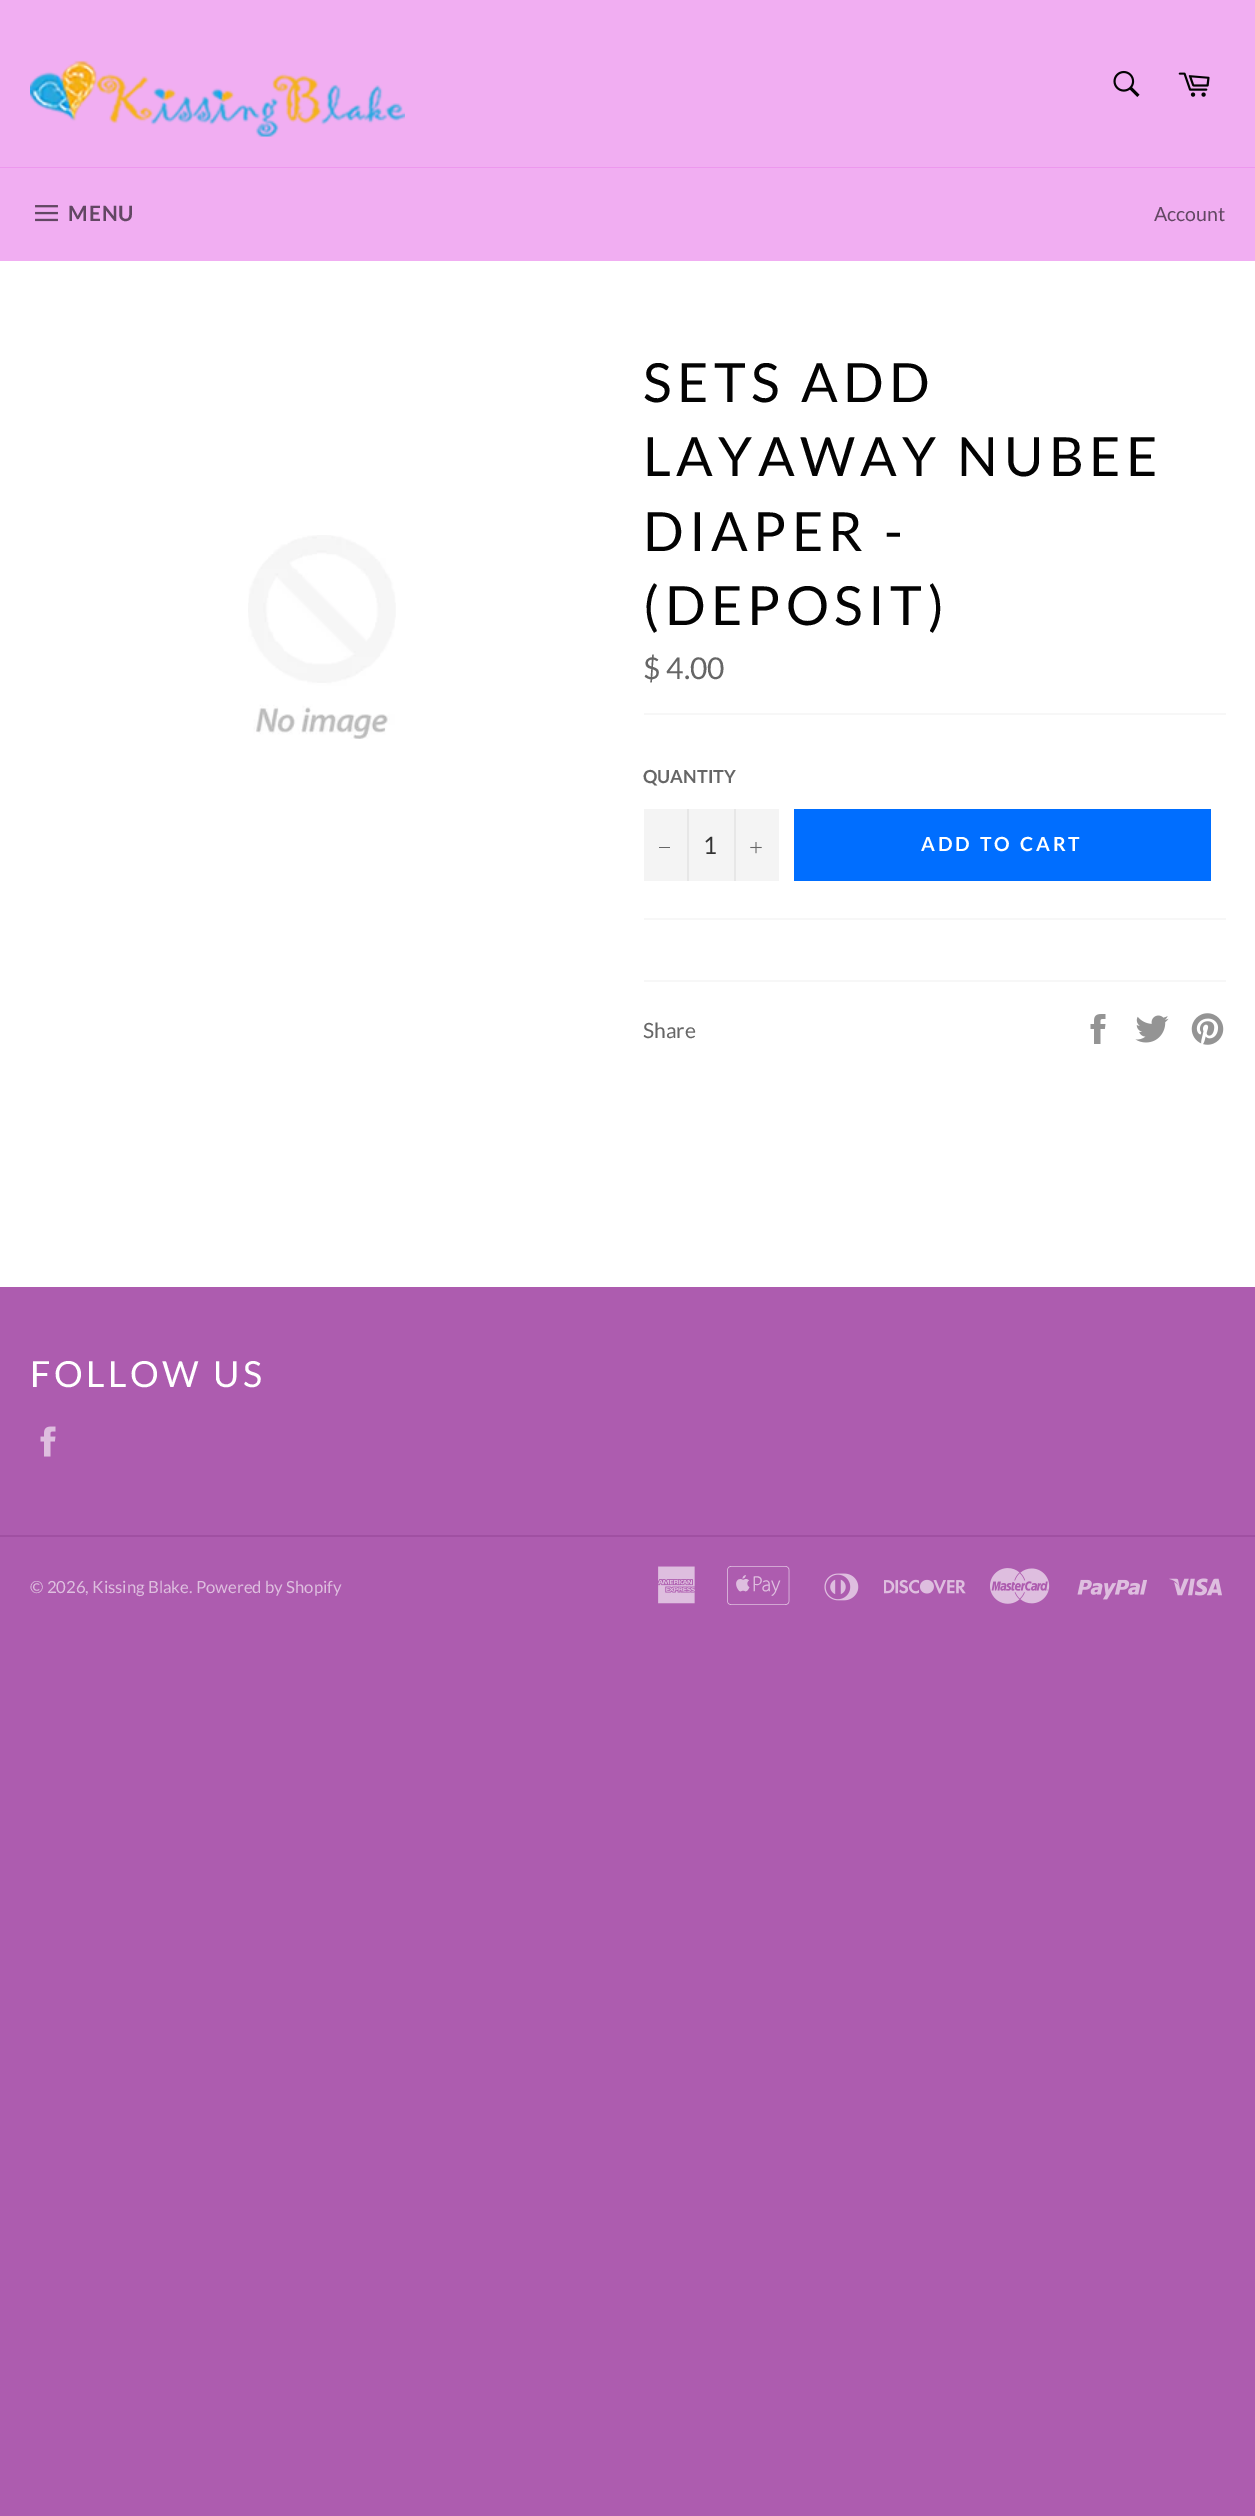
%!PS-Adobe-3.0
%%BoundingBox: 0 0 1255 2516
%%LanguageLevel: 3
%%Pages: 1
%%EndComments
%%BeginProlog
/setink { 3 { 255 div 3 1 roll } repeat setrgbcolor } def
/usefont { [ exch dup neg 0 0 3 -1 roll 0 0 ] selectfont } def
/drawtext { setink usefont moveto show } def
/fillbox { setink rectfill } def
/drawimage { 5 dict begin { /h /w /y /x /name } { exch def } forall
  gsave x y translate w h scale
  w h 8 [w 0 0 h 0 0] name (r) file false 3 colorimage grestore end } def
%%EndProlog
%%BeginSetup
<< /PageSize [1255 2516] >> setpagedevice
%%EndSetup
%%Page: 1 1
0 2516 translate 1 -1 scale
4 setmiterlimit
0 0 1255 2516 173 92 175 fillbox
0 0 1255 167 241 174 242 fillbox
(assets/img1.rgb) 30 60 375 77 drawimage
(assets/img2.rgb) 1113 70 27 27 drawimage
(assets/img3.rgb) 1178 72 32 25 drawimage
0 167 1255 1 237 152 238 fillbox
0 168 1255 93 241 174 242 fillbox
(assets/img4.rgb) 35 205 23 17 drawimage
/Lato-Bold 21 usefont
98 71 99 setink
68 221 moveto 1 0 (MENU) ashow
(Account) 1154 221 /Lato-Regular 19.5 98 71 99 drawtext
0 261 1255 1026 255 255 255 fillbox
(assets/img5.rgb) 248 535 148 204 drawimage
/Lato-Regular 54 usefont
3 3 3 setink
643 402 moveto 5.4 0 (SETS ADD) ashow
643 476 moveto 5.4 0 (LAYAWAY NUBEE) ashow
643 551 moveto 5.4 0 (DIAPER -) ashow
643 625 moveto 5.4 0 (\(DEPOSIT\)) ashow
($ 4.00) 643 679 /Lato-Regular 30 102 102 102 drawtext
644 713 582 2 247 247 247 fillbox
(QUANTITY) 643 783 /Lato-Bold 18 102 102 102 drawtext
644 809 135 72 244 244 244 fillbox
687 809 2 72 231 231 231 fillbox
659 847 11 1 102 102 102 fillbox
(1) 703 854 /Lato-Regular 24 51 51 51 drawtext
734 809 2 72 231 231 231 fillbox
(assets/img6.rgb) 750 842 12 12 drawimage
794 809 417 72 0 110 255 fillbox
/Lato-Bold 19.5 usefont
255 255 255 setink
921 851 moveto 3 0 (ADD TO CART) ashow
644 918 582 2 247 247 247 fillbox
644 980 582 2 247 247 247 fillbox
(Share) 643 1038 /Lato-Regular 21 102 102 102 drawtext
(assets/img7.rgb) 1090 1014 16 30 drawimage
(assets/img8.rgb) 1135 1015 34 28 drawimage
(assets/img9.rgb) 1191 1013 33 32 drawimage
/Lato-Regular 36 usefont
255 255 255 setink
30 1387 moveto 3.5 0 (FOLLOW US) ashow
(assets/img10.rgb) 40 1426 16 31 drawimage
0 1535 1255 2 160 80 162 fillbox
(© 2026, Kissing Blake. Powered by Shopify) 30 1593 /Lato-Regular 16.75 222 190 223 drawtext
(assets/img11.rgb) 658 1566 37 38 drawimage
(assets/img12.rgb) 727 1566 63 39 drawimage
(assets/img13.rgb) 824 1573 35 28 drawimage
(assets/img14.rgb) 884 1579 82 15 drawimage
(assets/img15.rgb) 990 1568 60 36 drawimage
(assets/img16.rgb) 1077 1579 70 21 drawimage
(assets/img17.rgb) 1169 1578 53 18 drawimage
showpage
%%EOF
